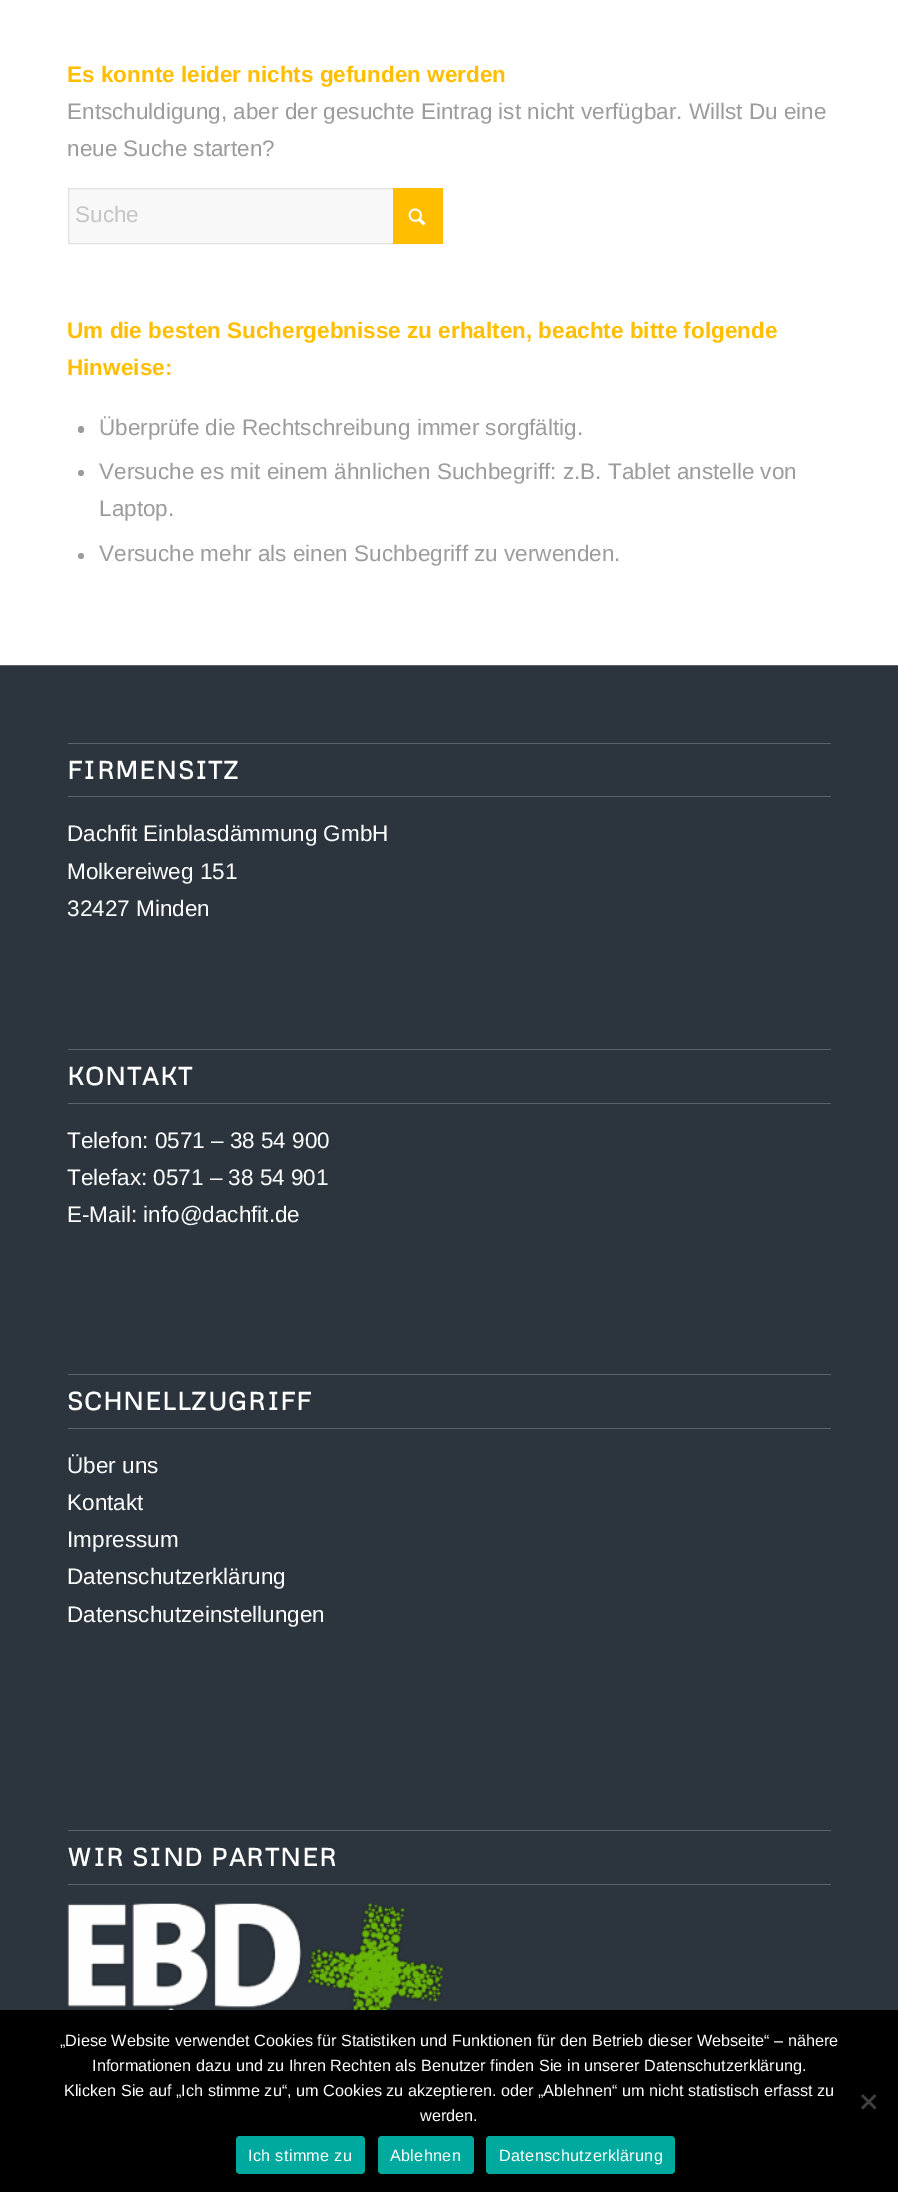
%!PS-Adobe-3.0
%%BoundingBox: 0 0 898 2192
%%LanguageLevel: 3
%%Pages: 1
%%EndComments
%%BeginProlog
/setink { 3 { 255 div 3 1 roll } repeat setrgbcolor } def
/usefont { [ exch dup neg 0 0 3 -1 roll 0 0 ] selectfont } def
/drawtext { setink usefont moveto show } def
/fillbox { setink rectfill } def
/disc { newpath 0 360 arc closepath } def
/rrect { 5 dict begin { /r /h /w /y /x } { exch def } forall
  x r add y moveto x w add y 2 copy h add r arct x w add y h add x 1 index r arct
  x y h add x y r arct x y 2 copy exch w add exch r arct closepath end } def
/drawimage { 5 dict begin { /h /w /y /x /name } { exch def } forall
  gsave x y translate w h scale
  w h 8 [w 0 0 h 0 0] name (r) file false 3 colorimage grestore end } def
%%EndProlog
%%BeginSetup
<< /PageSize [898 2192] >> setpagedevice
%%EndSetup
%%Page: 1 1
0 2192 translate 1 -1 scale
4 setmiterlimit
0 0 898 2192 255 255 255 fillbox
(Es konnte leider nichts gefunden werden) 67 82 /LiberationSans-Bold 22.5 255 191 0 drawtext
(Entschuldigung, aber der gesuchte Eintrag ist nicht verfügbar. Willst Du eine) 67 119 /LiberationSans-Regular 22.5 156 156 156 drawtext
(neue Suche starten?) 67 156 /LiberationSans-Regular 22.5 156 156 156 drawtext
69 189 324 54 248 248 248 fillbox
225 225 225 setink
68.5 188.5 374 55 rectstroke
(Suche) 75 222 /LiberationSans-Regular 22.5 197 197 197 drawtext
393 188 50 56 255 191 0 fillbox
(assets/img1.rgb) 408 208 18 18 drawimage
(Um die besten Suchergebnisse zu erhalten, beachte bitte folgende) 67 338 /LiberationSans-Bold 22.5 255 191 0 drawtext
(Hinweise:) 67 375 /LiberationSans-Bold 22.5 255 191 0 drawtext
156 156 156 setink
78 426 6 7 3 rrect fill
(Überprüfe die Rechtschreibung immer sorgfältig.) 99 435 /LiberationSans-Regular 22.5 156 156 156 drawtext
81 473 3 disc fill
(Versuche es mit einem ähnlichen Suchbegriff: z.B. Tablet anstelle von) 99 479 /LiberationSans-Regular 22.5 156 156 156 drawtext
(Laptop.) 99 516 /LiberationSans-Regular 22.5 156 156 156 drawtext
81 556 3 disc fill
(Versuche mehr als einen Suchbegriff zu verwenden.) 99 561 /LiberationSans-Regular 22.5 156 156 156 drawtext
0 666 898 1344 44 53 61 fillbox
0 665 898 1 91 100 107 fillbox
68 743 763 1 91 100 107 fillbox
68 796 763 1 91 100 107 fillbox
/Metrophobic-Bold 24.75 usefont
255 255 255 setink
67 779 moveto 1.25 0 (FIRMENSITZ) ashow
(Dachfit Einblasdämmung GmbH) 67 841 /LiberationSans-Regular 22.5 255 255 255 drawtext
(Molkereiweg 151) 67 879 /LiberationSans-Regular 22.5 255 255 255 drawtext
(32427 Minden) 67 916 /LiberationSans-Regular 22.5 255 255 255 drawtext
68 1049 763 1 91 100 107 fillbox
68 1103 763 1 91 100 107 fillbox
/Metrophobic-Bold 24.75 usefont
255 255 255 setink
67 1085 moveto 1.25 0 (KONTAKT) ashow
(Telefon: 0571 – 38 54 900) 67 1148 /LiberationSans-Regular 22.5 255 255 255 drawtext
(Telefax: 0571 – 38 54 901) 67 1185 /LiberationSans-Regular 22.5 255 255 255 drawtext
(E-Mail: info@dachfit.de) 67 1222 /LiberationSans-Regular 22.5 255 255 255 drawtext
68 1374 763 1 91 100 107 fillbox
68 1428 763 1 91 100 107 fillbox
/Metrophobic-Bold 24.75 usefont
255 255 255 setink
67 1410 moveto 1.25 0 (SCHNELLZUGRIFF) ashow
(Über uns) 67 1473 /LiberationSans-Regular 22.5 255 255 255 drawtext
(Kontakt) 67 1510 /LiberationSans-Regular 22.5 255 255 255 drawtext
(Impressum) 67 1547 /LiberationSans-Regular 22.5 255 255 255 drawtext
(Datenschutzerklärung) 67 1584 /LiberationSans-Regular 22.5 255 255 255 drawtext
(Datenschutzeinstellungen) 67 1622 /LiberationSans-Regular 22.5 255 255 255 drawtext
68 1830 763 1 91 100 107 fillbox
68 1884 763 1 91 100 107 fillbox
/Metrophobic-Bold 24.75 usefont
255 255 255 setink
67 1866 moveto 1.25 0 (WIR SIND PARTNER) ashow
(assets/img2.rgb) 67 1903 376 107 drawimage
0 2010 898 182 0 0 0 fillbox
(„Diese Website verwendet Cookies für Statistiken und Funktionen für den Betrieb dieser Webseite“ – nähere) 60 2046 /LiberationSans-Regular 16.25 255 255 255 drawtext
(Informationen dazu und zu Ihren Rechten als Benutzer finden Sie in unserer Datenschutzerklärung.) 92 2071 /LiberationSans-Regular 16.25 255 255 255 drawtext
(Klicken Sie auf „Ich stimme zu“, um Cookies zu akzeptieren. oder „Ablehnen“ um nicht statistisch erfasst zu) 64 2096 /LiberationSans-Regular 16.25 255 255 255 drawtext
(werden.) 420 2121 /LiberationSans-Regular 16.25 255 255 255 drawtext
64 64 64 setink
874.5 2094.5 moveto 876.5 2096 lineto 863 2109.5 lineto 861 2107.5 lineto closepath fill
861 2096 moveto 863 2094.5 lineto 876.5 2107.5 lineto 874.5 2109.5 lineto closepath fill
0 169 157 setink
236 2136 129 38 4 rrect fill
255 255 255 setink
248 2161 moveto 0.3 0 (Ich stimme zu) ashow
0 169 157 setink
378 2136 96 38 4 rrect fill
255 255 255 setink
390 2161 moveto 0.3 0 (Ablehnen) ashow
0 169 157 setink
486 2136 189 38 4 rrect fill
255 255 255 setink
499 2161 moveto 0.3 0 (Datenschutzerklärung) ashow
showpage
%%EOF
